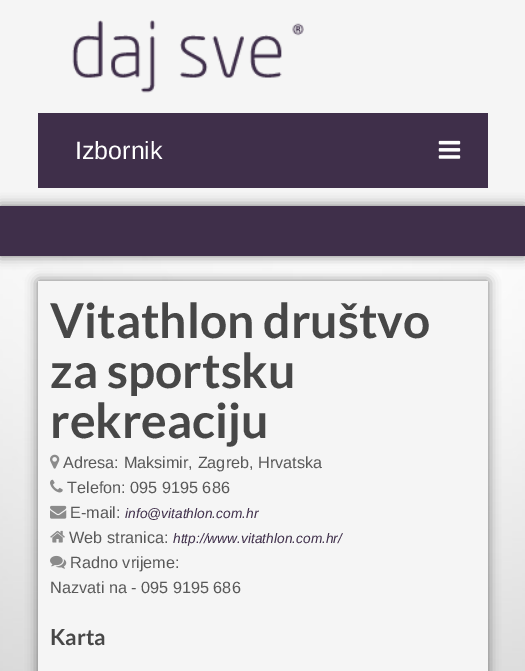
%!PS-Adobe-3.0
%%BoundingBox: 0 0 525 671
%%LanguageLevel: 3
%%Pages: 1
%%EndComments
%%BeginProlog
/setink { 3 { 255 div 3 1 roll } repeat setrgbcolor } def
/usefont { [ exch dup neg 0 0 3 -1 roll 0 0 ] selectfont } def
/drawtext { setink usefont moveto show } def
/fillbox { setink rectfill } def
/setalpha { dup .setfillconstantalpha .setstrokeconstantalpha } def
/rrect { 5 dict begin { /r /h /w /y /x } { exch def } forall
  x r add y moveto x w add y 2 copy h add r arct x w add y h add x 1 index r arct
  x y h add x y r arct x y 2 copy exch w add exch r arct closepath end } def
/softshadow { 12 dict begin { /a /b /q /h /w /y /x } { exch def } forall gsave /was 0 def
  9 -2 -9 { dup b mul 4 div /e exch def 1 sub .425 mul 2.718 exch exp 1 add a .99 .min exch div /now exch def
    1 1 now sub 1 was sub div sub setalpha /was now def
    w h .min e 2 mul add 0 gt { x e sub y e sub w e 2 mul add h e 2 mul add
      q e add b .6 mul add w h .min 2 div e add .min 0 .max rrect fill } if } for grestore end } def
/drawimage { 5 dict begin { /h /w /y /x /name } { exch def } forall
  gsave x y translate w h scale
  w h 8 [w 0 0 h 0 0] name (r) file false 3 colorimage grestore end } def
%%EndProlog
%%BeginSetup
<< /PageSize [525 671] /PageUsesTransparency true >> setpagedevice
%%EndSetup
%%Page: 1 1
0 .pushpdf14devicefilter
0 671 translate 1 -1 scale
4 setmiterlimit
0 0 525 671 255 255 255 fillbox
(assets/img1.rgb) 0 256 525 415 drawimage
0 0 525 206 245 245 245 fillbox
(assets/img2.rgb) 72 20 232 73 drawimage
0 0 0 setink
0 206 525 50 0 6 0.5 softshadow
38 113 450 75 63 47 74 fillbox
(Izbornik) 75 159 /LiberationSans-Regular 25 255 255 255 drawtext
(assets/img3.rgb) 438 140 23 19 drawimage
0 206 525 50 63 47 74 fillbox
0 0 0 setink
38 281 450 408 0 6 0.5 softshadow
38 281 450 390 245 245 245 fillbox
(Vitathlon društvo) 50 338 /Lato-Bold 48 71 71 71 drawtext
(za sportsku) 50 388 /Lato-Bold 48 71 71 71 drawtext
(rekreaciju) 50 438 /Lato-Bold 48 71 71 71 drawtext
(assets/img4.rgb) 50 454 10 15 drawimage
(Adresa: Maksimir, Zagreb, Hrvatska) 63 468 /LiberationSans-Regular 16.25 89 89 89 drawtext
(assets/img5.rgb) 50 479 13 14 drawimage
(Telefon: 095 9195 686) 67 493 /LiberationSans-Regular 16.25 89 89 89 drawtext
(assets/img6.rgb) 50 505 17 14 drawimage
(E-mail:) 70 518 /LiberationSans-Regular 16.25 89 89 89 drawtext
(info@vitathlon.com.hr) 125 518 /LiberationSans-Italic 13.75 63 47 74 drawtext
(assets/img7.rgb) 50 530 15 13 drawimage
(Web stranica:) 69 543 /LiberationSans-Regular 16.25 89 89 89 drawtext
(http://www.vitathlon.com.hr/) 173 543 /LiberationSans-Italic 13.75 63 47 74 drawtext
(assets/img8.rgb) 50 555 17 14 drawimage
(Radno vrijeme:) 70 568 /LiberationSans-Regular 16.25 89 89 89 drawtext
(Nazvati na - 095 9195 686) 50 593 /LiberationSans-Regular 16.25 89 89 89 drawtext
(Karta) 50 645 /Lato-Bold 22 71 71 71 drawtext
.poppdf14devicefilter showpage
%%EOF
